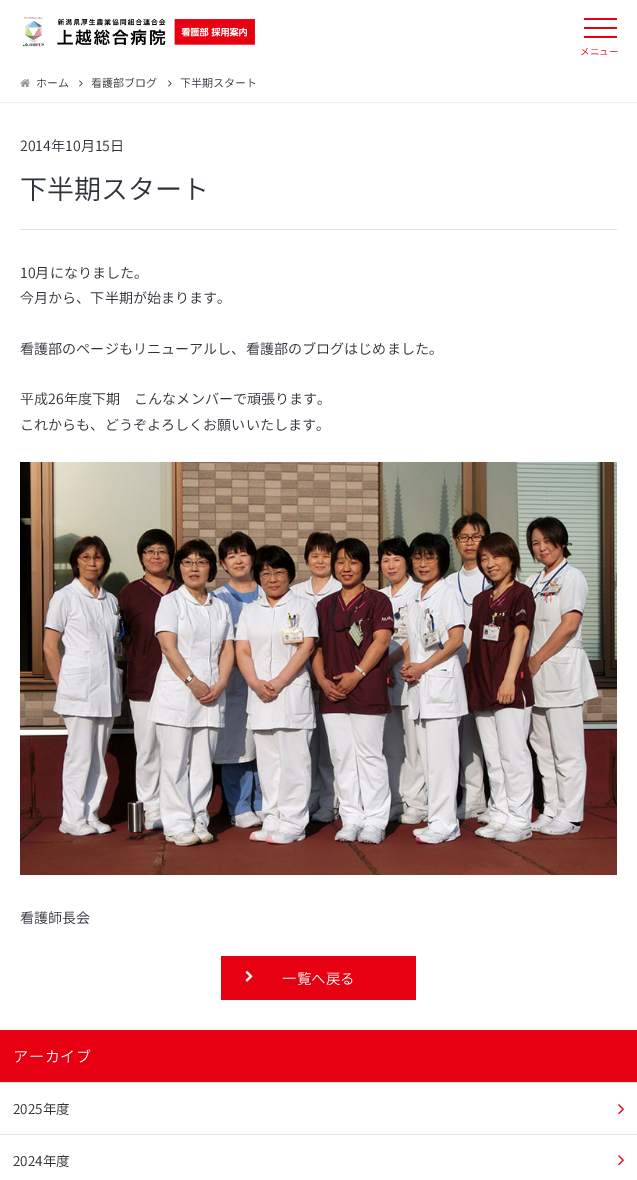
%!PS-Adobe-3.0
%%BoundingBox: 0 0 637 1180
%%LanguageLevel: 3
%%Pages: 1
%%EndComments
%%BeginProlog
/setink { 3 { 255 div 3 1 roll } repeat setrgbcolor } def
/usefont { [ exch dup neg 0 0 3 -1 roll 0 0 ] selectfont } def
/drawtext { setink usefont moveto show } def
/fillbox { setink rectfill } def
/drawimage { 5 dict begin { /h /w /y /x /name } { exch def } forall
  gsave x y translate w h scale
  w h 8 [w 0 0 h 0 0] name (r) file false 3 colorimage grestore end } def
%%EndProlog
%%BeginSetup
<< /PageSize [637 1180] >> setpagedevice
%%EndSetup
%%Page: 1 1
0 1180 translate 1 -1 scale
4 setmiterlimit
0 0 637 1180 255 255 255 fillbox
(assets/img1.rgb) 23 17 232 30 drawimage
584 27 33 2 230 0 18 fillbox
584 18 33 2 230 0 18 fillbox
584 36 33 2 230 0 18 fillbox
(メニュー) 580 55 /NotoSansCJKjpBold-Bold 9.5 230 0 18 drawtext
0 102 637 1 238 238 238 fillbox
(assets/img2.rgb) 20 79 10 8 drawimage
(ホーム) 36 87 /NotoSansCJKjpBold-Bold 11 49 49 49 drawtext
(assets/img3.rgb) 79 80 4 7 drawimage
(看護部ブログ) 91 87 /NotoSansCJKjpBold-Bold 11 49 49 49 drawtext
(assets/img3.rgb) 168 80 4 7 drawimage
(下半期スタート) 180 87 /NotoSansCJKjpBold-Bold 11 46 50 59 drawtext
(2014年10月15日) 20 151 /NotoSansCJKjpBold-Bold 14.1 46 50 59 drawtext
20 229 597 1 226 226 226 fillbox
(下半期スタート) 20 199 /NotoSansCJKjpBold-Bold 27 46 50 59 drawtext
(10月になりました。) 20 278 /NotoSansCJKjpBold-Bold 14.1 46 50 59 drawtext
(今月から、下半期が始まります。) 20 303 /NotoSansCJKjpBold-Bold 14.1 46 50 59 drawtext
(看護部のページもリニューアルし、看護部のブログはじめました。) 20 354 /NotoSansCJKjpBold-Bold 14.1 46 50 59 drawtext
(平成26年度下期　こんなメンバーで頑張ります。) 20 404 /NotoSansCJKjpBold-Bold 14.1 46 50 59 drawtext
(これからも、どうぞよろしくお願いいたします。) 20 430 /NotoSansCJKjpBold-Bold 14.1 46 50 59 drawtext
(assets/img4.rgb) 20 462 597 413 drawimage
(看護師長会) 20 923 /NotoSansCJKjpBold-Bold 14.1 46 50 59 drawtext
221 956 195 44 230 0 18 fillbox
(assets/img5.rgb) 245 970 8 12 drawimage
(一覧へ戻る) 282 984 /NotoSansCJKjpBold-Bold 14.5 255 255 255 drawtext
0 1030 637 52 230 0 18 fillbox
/NotoSansCJKjpBold-Bold 15 usefont
255 255 255 setink
13 1062 moveto 0.75 0 (アーカイブ) ashow
0 1082 637 1 226 226 226 fillbox
(2025年度) 13 1114 /NotoSansCJKjpBold-Bold 13.5 49 49 49 drawtext
(assets/img6.rgb) 618 1104 6 11 drawimage
0 1134 637 1 226 226 226 fillbox
(2024年度) 13 1166 /NotoSansCJKjpBold-Bold 13.5 49 49 49 drawtext
(assets/img6.rgb) 618 1155 6 11 drawimage
showpage
%%EOF
